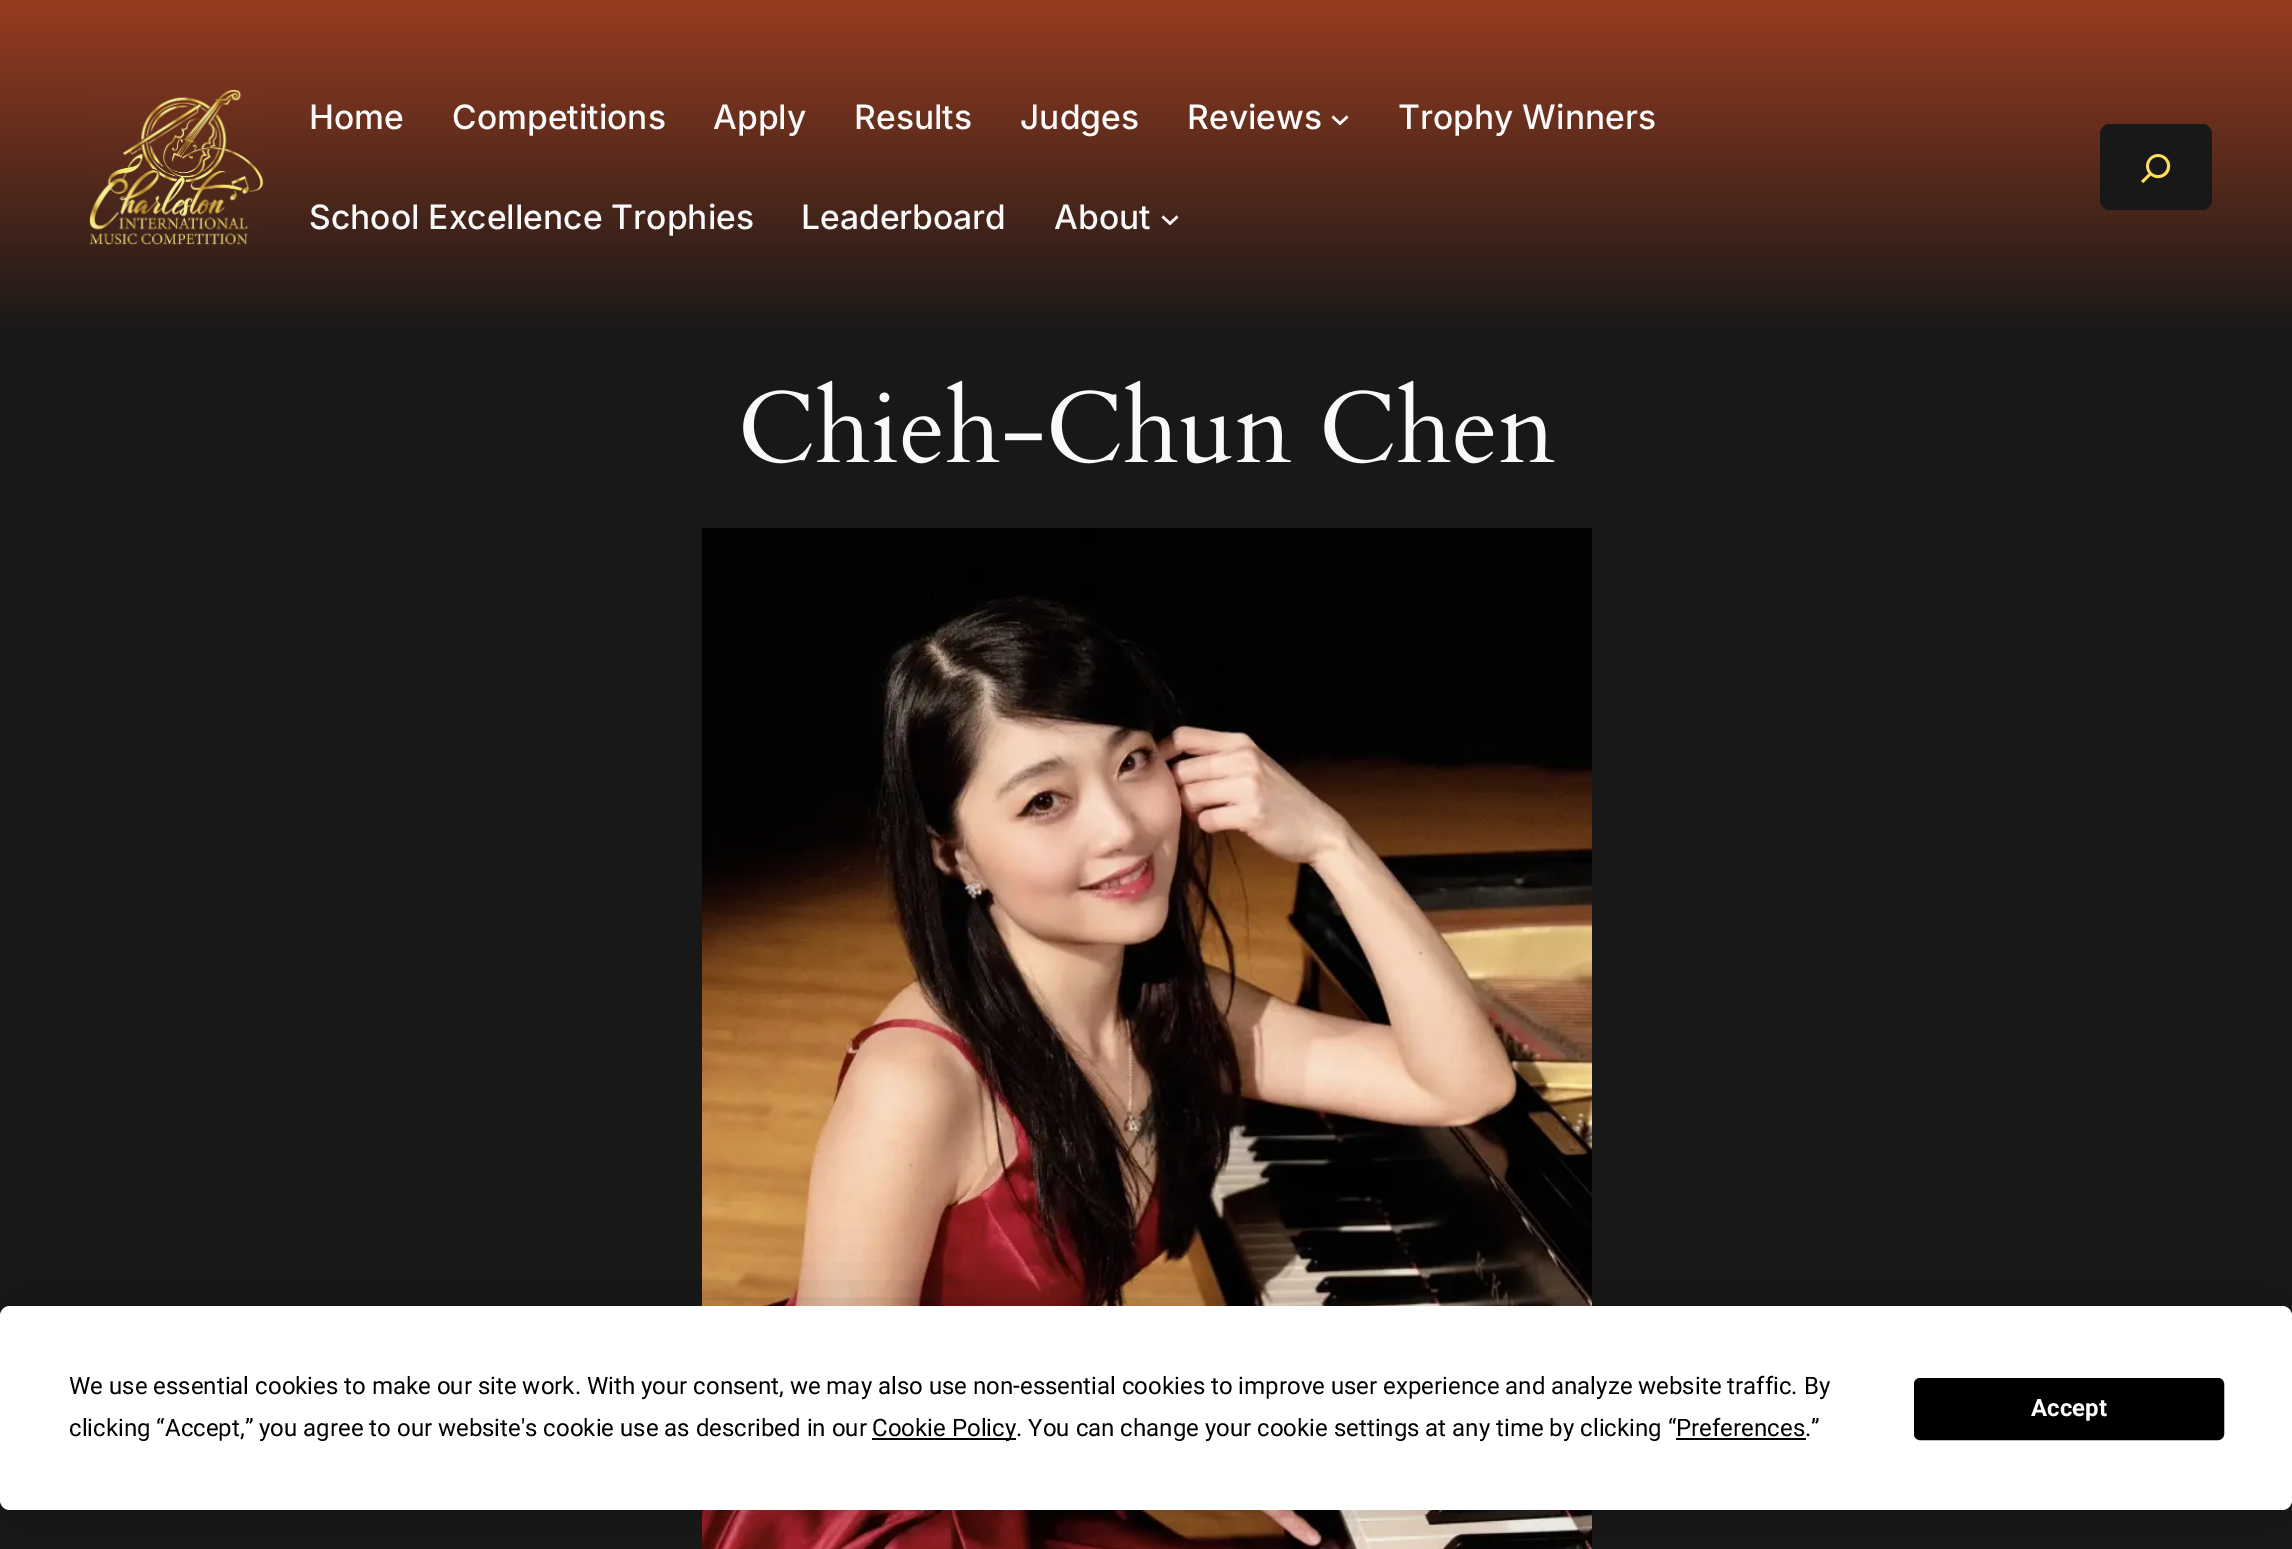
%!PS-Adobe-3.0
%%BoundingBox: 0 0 2292 1549
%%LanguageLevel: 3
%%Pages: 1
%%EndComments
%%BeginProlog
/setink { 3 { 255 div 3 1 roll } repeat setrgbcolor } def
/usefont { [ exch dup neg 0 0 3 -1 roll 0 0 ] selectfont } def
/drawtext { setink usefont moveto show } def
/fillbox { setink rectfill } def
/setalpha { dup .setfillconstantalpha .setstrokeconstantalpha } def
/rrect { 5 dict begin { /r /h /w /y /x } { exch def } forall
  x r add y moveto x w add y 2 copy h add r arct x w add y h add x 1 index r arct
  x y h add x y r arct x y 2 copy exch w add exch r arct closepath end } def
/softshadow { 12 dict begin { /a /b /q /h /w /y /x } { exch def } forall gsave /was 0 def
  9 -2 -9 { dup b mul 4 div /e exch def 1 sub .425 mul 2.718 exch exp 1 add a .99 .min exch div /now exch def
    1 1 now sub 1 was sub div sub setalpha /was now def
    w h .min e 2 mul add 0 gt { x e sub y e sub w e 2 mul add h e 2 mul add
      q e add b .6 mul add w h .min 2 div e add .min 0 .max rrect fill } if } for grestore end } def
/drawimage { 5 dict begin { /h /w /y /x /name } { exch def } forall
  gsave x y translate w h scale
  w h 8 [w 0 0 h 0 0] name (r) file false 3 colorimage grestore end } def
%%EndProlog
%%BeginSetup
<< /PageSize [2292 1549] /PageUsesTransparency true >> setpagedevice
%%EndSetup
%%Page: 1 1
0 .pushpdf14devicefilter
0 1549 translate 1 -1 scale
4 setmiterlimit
0 0 2292 1549 24 24 24 fillbox
gsave 0 0 moveto 2292 0 lineto 2292 327 lineto 0 327 lineto closepath clip newpath
<< /ShadingType 2 /ColorSpace /DeviceRGB /Coords [1146 0 1146 334] /Extend [true true] /Function << /FunctionType 2 /Domain [0 1] /C0 [0.592 0.235 0.125] /C1 [0.094 0.094 0.094] /N 1 >> >> shfill grestore
(assets/img1.rgb) 89 89 175 156 drawimage
(Home) 309 129 /Inter-Medium 33.6 249 249 249 drawtext
(Competitions) 452 129 /Inter-Medium 33.6 249 249 249 drawtext
(Apply) 713 129 /Inter-Medium 33.6 249 249 249 drawtext
(Results) 854 129 /Inter-Medium 33.6 249 249 249 drawtext
(Judges) 1020 129 /Inter-Medium 33.6 249 249 249 drawtext
(Reviews) 1187 129 /Inter-Medium 33.6 249 249 249 drawtext
2.5 setlinewidth
1332.5 116.5 moveto 1340 123.5 lineto 1347.5 116.5 lineto stroke
(Trophy Winners) 1398 129 /Inter-Medium 33.6 249 249 249 drawtext
(School Excellence Trophies) 309 229 /Inter-Medium 33.6 249 249 249 drawtext
(Leaderboard) 801 229 /Inter-Medium 33.6 249 249 249 drawtext
(About) 1054 229 /Inter-Medium 33.6 249 249 249 drawtext
1162.5 216.5 moveto 1170 223.5 lineto 1177.5 216.5 lineto stroke
24 24 24 setink
2100 124 112 86 10 rrect fill
(assets/img2.rgb) 2141 154 30 30 drawimage
(assets/img3.rgb) 743 380 812 84 drawimage
(assets/img4.rgb) 702 528 890 1021 drawimage
0 0 0 setink
0 1306 2292 204 10 35 0.25 softshadow
255 255 255 setink
0 1306 2292 204 10 rrect fill
(We use essential cookies to make our site work. With your consent, we may also use non-essential cookies to improve user experience and analyze website traffic. By) 69 1394 /Roboto-Regular 24 0 0 0 drawtext
(clicking “Accept,” you agree to our website's cookie use as described in our) 69 1436 /Roboto-Regular 24 0 0 0 drawtext
872 1438 144 2 0 0 0 fillbox
(Cookie Policy. You can change your cookie settings at any time by clicking “Preferences.”) 872 1436 /Roboto-Regular 24 0 0 0 drawtext
1676 1438 130 2 0 0 0 fillbox
1915 1379 308 60 5 rrect gsave fill grestore
2 setlinewidth
stroke
(Accept) 2031 1416 /Roboto-Bold 24 255 255 255 drawtext
.poppdf14devicefilter showpage
%%EOF
